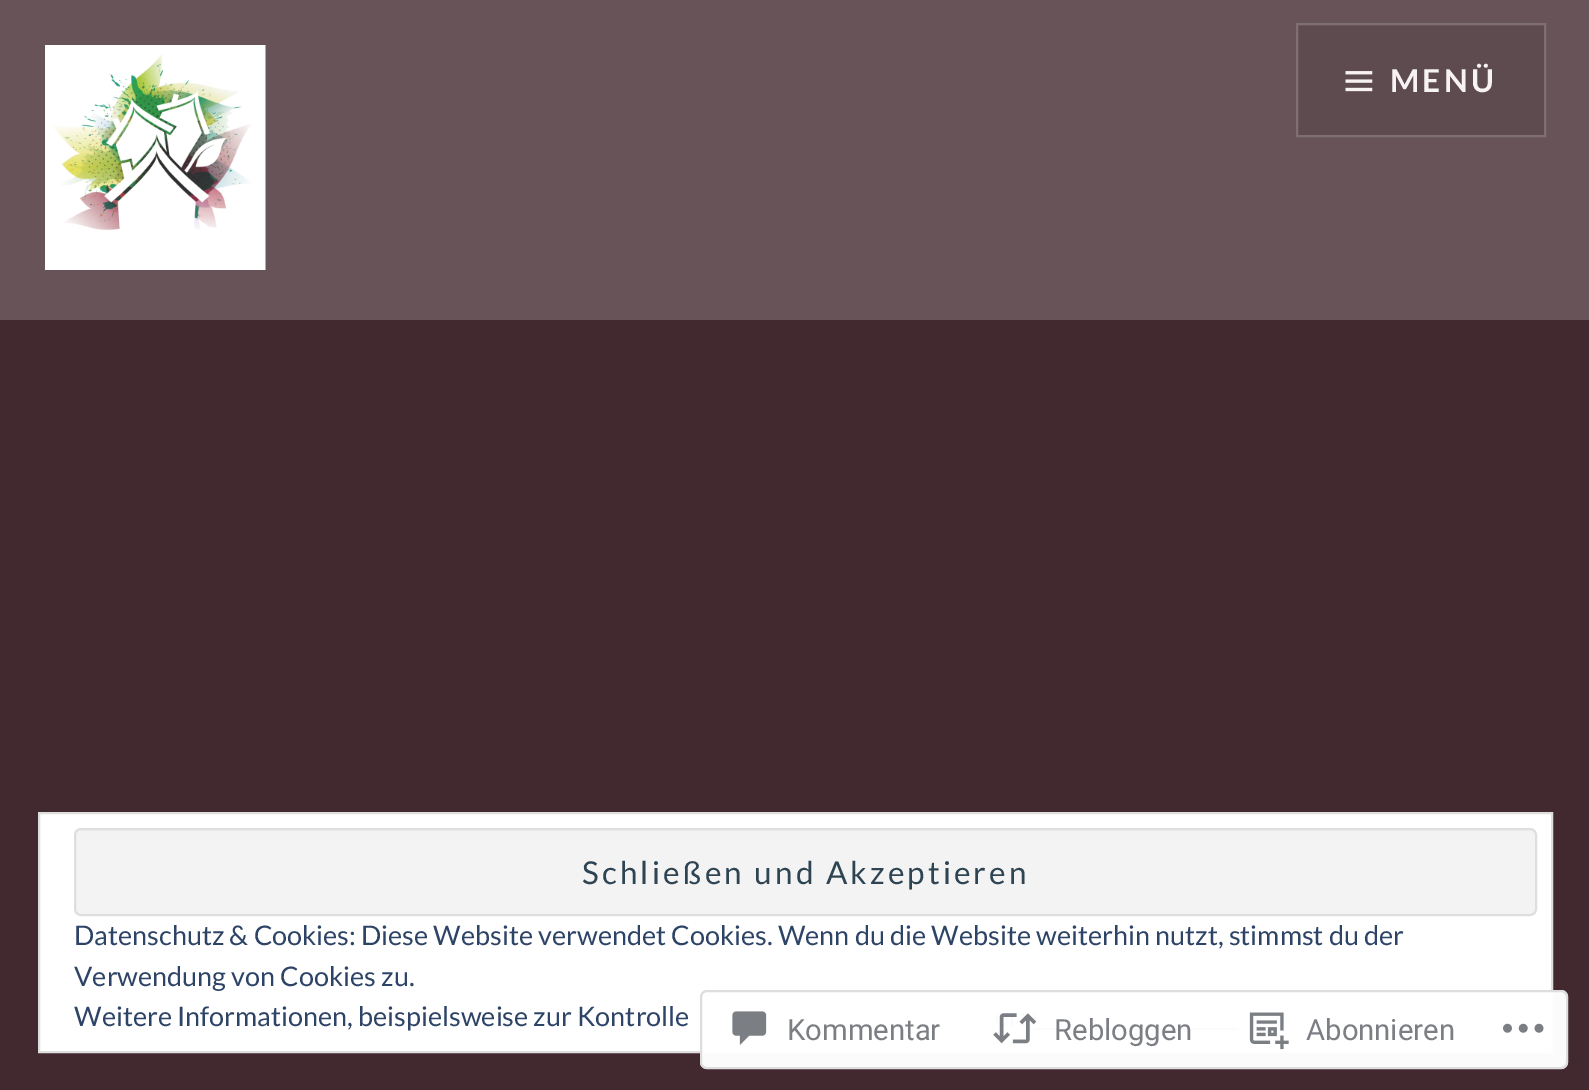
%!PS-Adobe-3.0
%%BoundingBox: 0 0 1589 1090
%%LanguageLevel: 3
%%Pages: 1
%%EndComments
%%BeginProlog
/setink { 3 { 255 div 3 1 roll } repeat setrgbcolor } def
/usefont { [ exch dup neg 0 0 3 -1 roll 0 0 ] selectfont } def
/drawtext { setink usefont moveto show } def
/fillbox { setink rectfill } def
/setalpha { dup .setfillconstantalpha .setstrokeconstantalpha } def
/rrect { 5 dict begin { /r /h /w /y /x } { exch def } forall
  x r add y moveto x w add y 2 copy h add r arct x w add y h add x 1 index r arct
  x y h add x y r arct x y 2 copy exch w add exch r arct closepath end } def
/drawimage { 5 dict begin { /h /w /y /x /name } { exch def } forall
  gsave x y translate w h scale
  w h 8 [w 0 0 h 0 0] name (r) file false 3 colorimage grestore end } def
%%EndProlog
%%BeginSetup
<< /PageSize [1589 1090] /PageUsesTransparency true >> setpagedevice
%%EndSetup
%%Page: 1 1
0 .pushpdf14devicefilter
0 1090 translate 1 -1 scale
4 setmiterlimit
0 0 1589 1090 66 40 47 fillbox
0 0 1589 320 104 83 89 fillbox
(assets/img1.rgb) 45 45 221 225 drawimage
94 75 80 setink
1297 24 moveto 1545 24 lineto 1545 136 lineto 1297 136 lineto closepath gsave fill grestore
126 111 115 setink
2 setlinewidth
stroke
(assets/img2.rgb) 1345 71 28 21 drawimage
/Lato-Bold 31.5 usefont
247 242 244 setink
1390 92 moveto 3.15 0 (MENÜ) ashow
255 255 255 setink
39 813 moveto 1552 813 lineto 1552 1052 lineto 39 1052 lineto closepath gsave fill grestore
222 222 222 setink
stroke
243 243 243 setink
75 829 1461 86 6 rrect gsave fill grestore
222 222 222 setink
stroke
/Lato-Regular 31.5 usefont
46 68 83 setink
582 884 moveto 3.15 0 (Schließen und Akzeptieren) ashow
(Datenschutz & Cookies: Diese Website verwendet Cookies. Wenn du die Website weiterhin nutzt, stimmst du der) 74 945 /Lato-Regular 27 46 68 103 drawtext
(Verwendung von Cookies zu.) 74 986 /Lato-Regular 27 46 68 103 drawtext
(Weitere Informationen, beispielsweise zur Kontrolle) 74 1026 /Lato-Regular 27 46 68 103 drawtext
1033 1028 205 2 46 68 103 fillbox
0.98 setalpha
255 255 255 setink
700 990 868 79 7 rrect fill
220 220 222 setink
701 991 866 77 6 rrect stroke
1 setalpha
(assets/img3.rgb) 732 1011 35 34 drawimage
(Kommentar) 787 1040 /Roboto-Regular 29.25 123 127 132 drawtext
(assets/img4.rgb) 993 1013 44 31 drawimage
(Rebloggen) 1054 1040 /Roboto-Regular 29.25 123 127 132 drawtext
(assets/img5.rgb) 1249 1012 40 38 drawimage
(Abonnieren) 1306 1040 /Roboto-Regular 29.25 123 127 132 drawtext
(assets/img6.rgb) 1503 1023 41 10 drawimage
.poppdf14devicefilter showpage
%%EOF
